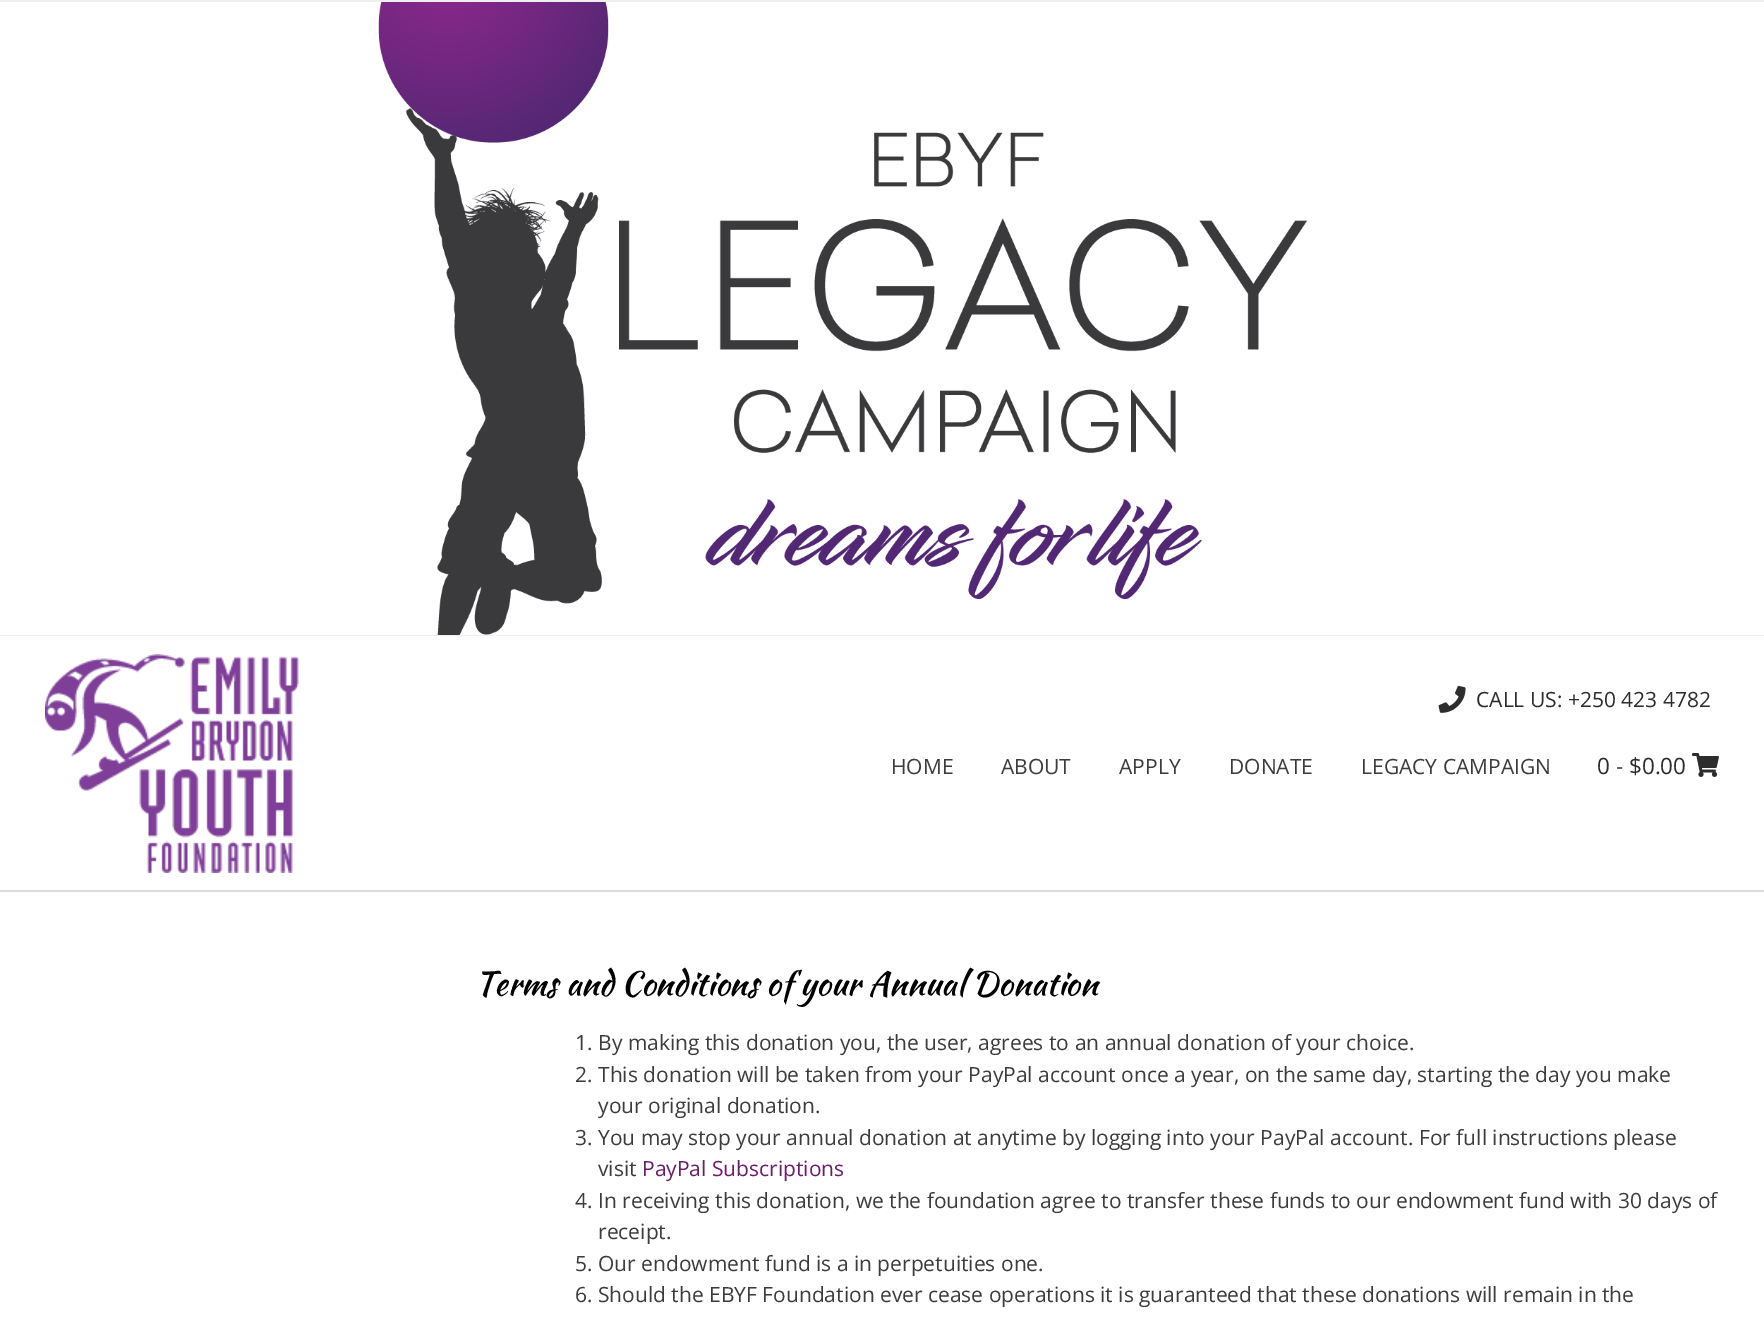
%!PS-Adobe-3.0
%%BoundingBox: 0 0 1764 1319
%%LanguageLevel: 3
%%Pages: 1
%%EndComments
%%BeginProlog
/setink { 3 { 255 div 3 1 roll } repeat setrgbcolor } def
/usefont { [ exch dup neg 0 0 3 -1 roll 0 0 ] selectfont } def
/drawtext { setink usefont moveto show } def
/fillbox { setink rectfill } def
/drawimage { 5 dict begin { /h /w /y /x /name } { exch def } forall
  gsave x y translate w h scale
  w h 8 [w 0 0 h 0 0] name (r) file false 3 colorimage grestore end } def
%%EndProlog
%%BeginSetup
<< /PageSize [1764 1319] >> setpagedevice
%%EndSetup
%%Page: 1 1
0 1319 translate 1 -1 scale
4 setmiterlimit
0 0 1764 1319 255 255 255 fillbox
(assets/img1.rgb) 378 2 930 633 drawimage
0 0 1764 2 239 239 239 fillbox
0 635 1764 1 239 239 239 fillbox
0 890 1764 2 219 219 219 fillbox
(assets/img2.rgb) 45 654 254 219 drawimage
(assets/img3.rgb) 1438 685 28 28 drawimage
(CALL US: +250 423 4782) 1476 707 /OpenSans-Regular 21 45 45 45 drawtext
(HOME) 891 774 /OpenSans-Regular 21 60 60 60 drawtext
(ABOUT) 1001 774 /OpenSans-Regular 21 60 60 60 drawtext
(APPLY) 1119 774 /OpenSans-Regular 21 60 60 60 drawtext
(DONATE) 1229 774 /OpenSans-Regular 21 60 60 60 drawtext
(LEGACY CAMPAIGN) 1361 774 /OpenSans-Regular 21 60 60 60 drawtext
(0 - $0.00) 1597 774 /OpenSans-Regular 22.5 45 45 45 drawtext
(assets/img4.rgb) 1692 753 27 24 drawimage
(Terms and Conditions of your Annual Donation) 475 995 /KaushanScript-Regular 33 0 0 0 drawtext
(1. By making this donation you, the user, agrees to an annual donation of your choice.) 575 1050 /OpenSans-Regular 21 60 60 60 drawtext
(2. This donation will be taken from your PayPal account once a year, on the same day, starting the day you make) 575 1082 /OpenSans-Regular 21 60 60 60 drawtext
(your original donation.) 598 1113 /OpenSans-Regular 21 60 60 60 drawtext
(3. You may stop your annual donation at anytime by logging into your PayPal account. For full instructions please) 575 1145 /OpenSans-Regular 21 60 60 60 drawtext
(visit) 598 1176 /OpenSans-Regular 21 60 60 60 drawtext
(PayPal Subscriptions) 642 1176 /OpenSans-Regular 21 107 28 107 drawtext
(4. In receiving this donation, we the foundation agree to transfer these funds to our endowment fund with 30 days of) 575 1208 /OpenSans-Regular 21 60 60 60 drawtext
(receipt.) 598 1239 /OpenSans-Regular 21 60 60 60 drawtext
(5. Our endowment fund is a in perpetuities one.) 575 1271 /OpenSans-Regular 21 60 60 60 drawtext
(6. Should the EBYF Foundation ever cease operations it is guaranteed that these donations will remain in the) 575 1302 /OpenSans-Regular 21 60 60 60 drawtext
showpage
%%EOF
